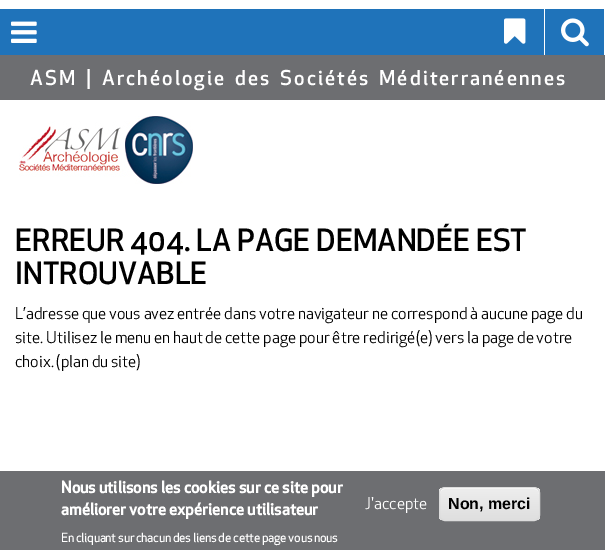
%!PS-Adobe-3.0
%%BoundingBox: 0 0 605 550
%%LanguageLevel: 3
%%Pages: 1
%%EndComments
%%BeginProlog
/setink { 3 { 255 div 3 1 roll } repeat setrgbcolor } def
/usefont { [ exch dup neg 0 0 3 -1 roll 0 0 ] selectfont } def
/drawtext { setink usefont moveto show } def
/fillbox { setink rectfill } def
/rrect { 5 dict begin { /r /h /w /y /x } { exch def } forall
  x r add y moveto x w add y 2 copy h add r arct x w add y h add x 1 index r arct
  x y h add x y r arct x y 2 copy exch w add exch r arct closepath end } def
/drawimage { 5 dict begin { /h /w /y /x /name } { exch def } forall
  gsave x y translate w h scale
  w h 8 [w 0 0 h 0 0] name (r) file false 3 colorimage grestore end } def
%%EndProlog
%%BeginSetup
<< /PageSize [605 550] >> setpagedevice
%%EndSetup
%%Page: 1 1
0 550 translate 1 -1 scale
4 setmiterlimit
0 0 605 550 255 255 255 fillbox
0 9 604 46 31 115 186 fillbox
(assets/img1.rgb) 11 21 26 22 drawimage
544 9 1 46 255 255 255 fillbox
(assets/img2.rgb) 504 18 22 26 drawimage
(assets/img3.rgb) 561 18 28 29 drawimage
0 55 605 45 109 110 113 fillbox
/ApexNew-Medium 20 usefont
255 255 255 setink
30 85 moveto 3 0 32 2 0 (ASM | Archéologie des Sociétés Méditerranéennes) awidthshow
(assets/img4.rgb) 19 116 174 68 drawimage
(ERREUR 404. LA PAGE DEMANDÉE EST) 15 251 /ApexNew-Medium 30 0 0 0 drawtext
(INTROUVABLE) 15 284 /ApexNew-Medium 30 0 0 0 drawtext
(L’adresse que vous avez entrée dans votre navigateur ne correspond à aucune page du) 15 319 /ApexNew-Regular 16 0 0 0 drawtext
(site. Utilisez le menu en haut de cette page pour être redirigé\(e\) vers la page de votre) 15 343 /ApexNew-Regular 16 0 0 0 drawtext
(choix. \(plan du site\)) 15 367 /ApexNew-Regular 16 0 0 0 drawtext
0 471 605 79 109 110 113 fillbox
(Nous utilisons les cookies sur ce site pour) 61 493 /ApexNew-Bold 16 255 255 255 drawtext
(améliorer votre expérience utilisateur) 61 515 /ApexNew-Bold 16 255 255 255 drawtext
(En cliquant sur chacun des liens de cette page vous nous) 61 542 /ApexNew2-Bold 12 255 255 255 drawtext
(J'accepte) 365 509 /ApexNew-Regular 16 255 255 255 drawtext
gsave
439 487 101 34 6 rrect clip newpath
gsave 439 488 moveto 540 488 lineto 540 520 lineto 439 520 lineto closepath clip newpath
<< /ShadingType 2 /ColorSpace /DeviceRGB /Coords [490 488 490 520] /Extend [true true] /Function << /FunctionType 3 /Domain [0 1] /Functions [<< /FunctionType 2 /Domain [0 1] /C0 [0.929 0.929 0.929] /C1 [0.929 0.929 0.929] /N 1 >> << /FunctionType 2 /Domain [0 1] /C0 [0.929 0.929 0.929] /C1 [0.875 0.875 0.875] /N 1 >>] /Bounds [0.05] /Encode [0 1 0 1] >> >> shfill grestore
grestore
445 489 moveto 534 489 lineto 537 489 539 491 539 494 curveto 539 484 525 488 519 488 curveto 460 488 lineto 454 488 440 484 440 494 curveto 440 491 442 489 445 489 curveto closepath fill
220 220 220 setink
439.5 487.5 100 33 5.5 rrect stroke
(Non, merci) 448 509 /LiberationSans-Bold 16 0 0 0 drawtext
showpage
%%EOF
